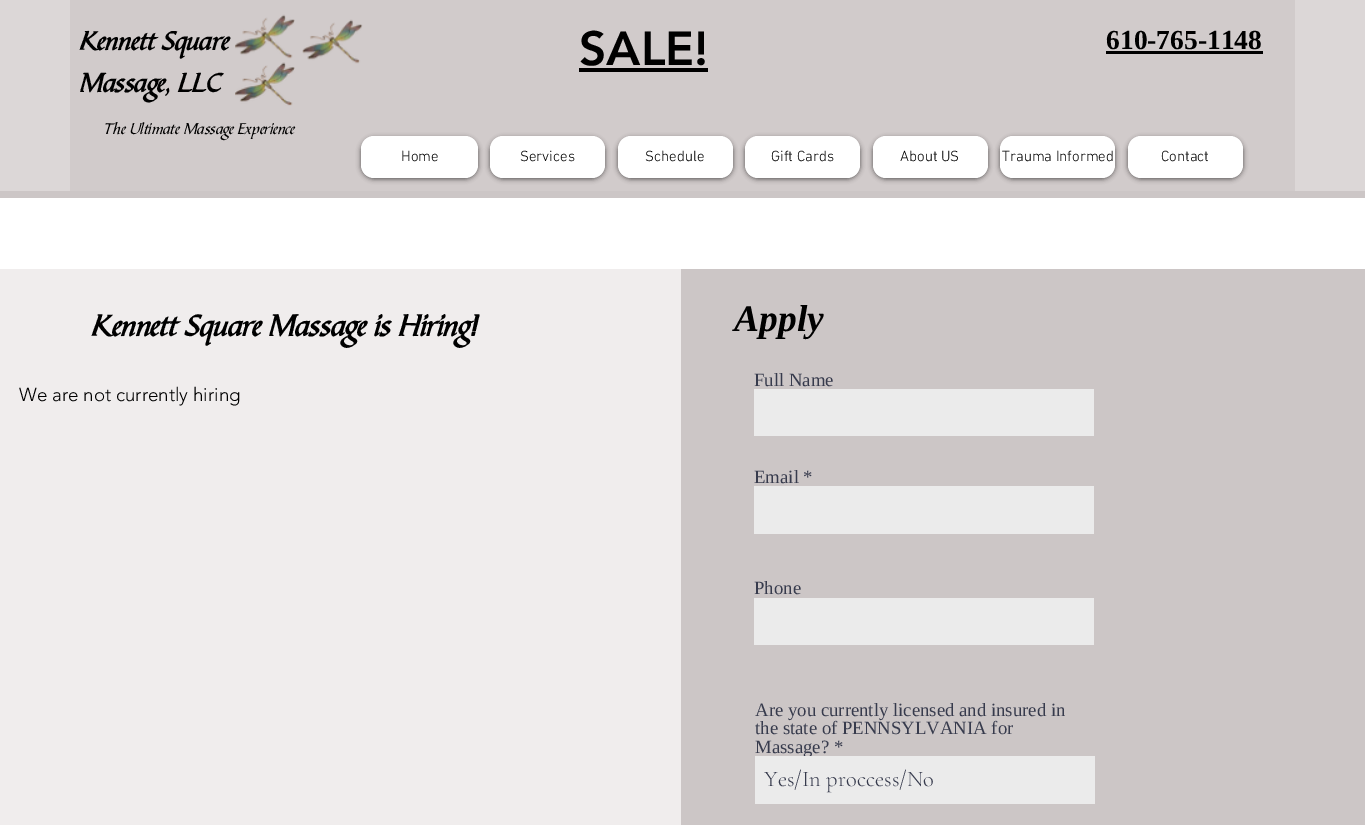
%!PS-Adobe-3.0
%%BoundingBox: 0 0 1365 825
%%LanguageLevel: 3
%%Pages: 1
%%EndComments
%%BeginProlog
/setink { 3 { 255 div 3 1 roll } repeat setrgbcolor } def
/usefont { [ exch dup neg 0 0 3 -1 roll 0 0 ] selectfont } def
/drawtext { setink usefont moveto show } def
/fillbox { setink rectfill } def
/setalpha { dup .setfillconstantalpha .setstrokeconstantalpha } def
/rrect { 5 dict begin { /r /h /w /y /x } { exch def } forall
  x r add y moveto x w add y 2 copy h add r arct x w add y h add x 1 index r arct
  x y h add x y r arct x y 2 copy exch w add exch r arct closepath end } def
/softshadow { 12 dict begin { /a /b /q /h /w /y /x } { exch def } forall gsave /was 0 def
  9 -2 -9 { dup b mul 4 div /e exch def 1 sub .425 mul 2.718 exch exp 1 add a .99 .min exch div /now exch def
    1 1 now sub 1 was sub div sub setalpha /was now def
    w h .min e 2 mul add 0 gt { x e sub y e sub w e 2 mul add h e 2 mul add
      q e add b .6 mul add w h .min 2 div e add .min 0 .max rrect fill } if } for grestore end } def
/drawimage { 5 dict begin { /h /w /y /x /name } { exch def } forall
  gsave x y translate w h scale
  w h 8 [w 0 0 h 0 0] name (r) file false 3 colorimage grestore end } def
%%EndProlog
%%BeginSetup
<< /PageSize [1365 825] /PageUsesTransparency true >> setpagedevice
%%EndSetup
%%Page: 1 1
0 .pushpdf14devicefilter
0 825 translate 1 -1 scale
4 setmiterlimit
0 0 1365 825 255 255 255 fillbox
0 0 1365 191 220 215 215 fillbox
0 191 1365 7 204 198 198 fillbox
70 0 1225 191 209 203 203 fillbox
(Kennett Square) 80 50 /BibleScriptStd-Bold 27.5 0 0 0 drawtext
(Massage, LLC) 80 92 /BibleScriptStd-Bold 27.5 0 0 0 drawtext
(assets/img1.rgb) 235 14 60 45 drawimage
(assets/img2.rgb) 302 19 61 45 drawimage
(SALE!) 579 65 /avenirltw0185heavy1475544-Black 47.5 0 0 0 drawtext
579 68 129 4 0 0 0 fillbox
(610-765-1148) 1106 49 /LiberationSerif-Bold 27.5 0 0 0 drawtext
1106 51 157 3 0 0 0 fillbox
(assets/img3.rgb) 235 62 60 44 drawimage
(The Ultimate Massage Experience) 104 134 /BibleScriptStd-Regular 16.25 0 0 0 drawtext
361 138 117 41 13 2.5 0.6 softshadow
255 255 255 setink
361 136 117 42 13 rrect fill
(Home) 401 161 /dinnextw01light-Light 15 0 0 0 drawtext
490 138 115 41 13 2.5 0.6 softshadow
255 255 255 setink
490 136 115 42 13 rrect fill
(Services) 520 161 /dinnextw01light-Light 15 0 0 0 drawtext
618 138 115 41 13 2.5 0.6 softshadow
255 255 255 setink
618 136 115 42 13 rrect fill
(Schedule) 645 161 /dinnextw01light-Light 15 0 0 0 drawtext
745 138 115 41 13 2.5 0.6 softshadow
255 255 255 setink
745 136 115 42 13 rrect fill
(Gift Cards) 771 161 /dinnextw01light-Light 15 0 0 0 drawtext
873 138 115 41 13 2.5 0.6 softshadow
255 255 255 setink
873 136 115 42 13 rrect fill
(About US) 900 161 /dinnextw01light-Light 15 0 0 0 drawtext
1000 138 115 41 13 2.5 0.6 softshadow
255 255 255 setink
1000 136 115 42 13 rrect fill
(Trauma Informed) 1002 161 /dinnextw01light-Light 15 0 0 0 drawtext
1128 138 115 41 13 2.5 0.6 softshadow
255 255 255 setink
1128 136 115 42 13 rrect fill
(Contact) 1161 161 /dinnextw01light-Light 15 0 0 0 drawtext
0 269 681 556 240 237 237 fillbox
(Kennett Square Massage is Hiring!) 92 336 /BibleScriptStd-Bold 31.25 0 0 0 drawtext
(We are not currently hiring) 19 401 /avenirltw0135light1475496-Light 18.75 0 0 0 drawtext
681 269 684 556 204 198 198 fillbox
(Apply) 734 331 /LiberationSerif-BoldItalic 37.5 0 0 0 drawtext
(Full Name) 754 386 /LiberationSerif-Regular 18.75 55 59 77 drawtext
754 389 340 47 235 235 235 fillbox
(Email *) 754 483 /LiberationSerif-Regular 18.75 55 59 77 drawtext
754 486 340 48 235 235 235 fillbox
(Phone) 754 594 /LiberationSerif-Regular 18.75 55 59 77 drawtext
754 598 340 47 235 235 235 fillbox
(Are you currently licensed and insured in) 755 716 /LiberationSerif-Regular 18.75 55 59 77 drawtext
(the state of PENNSYLVANIA for) 755 734 /LiberationSerif-Regular 18.75 55 59 77 drawtext
(Massage? *) 755 753 /LiberationSerif-Regular 18.75 55 59 77 drawtext
755 756 340 48 235 235 235 fillbox
(Yes/In proccess/No) 764 786 /CormorantGaramond-Light 22.5 55 59 77 drawtext
.poppdf14devicefilter showpage
%%EOF
